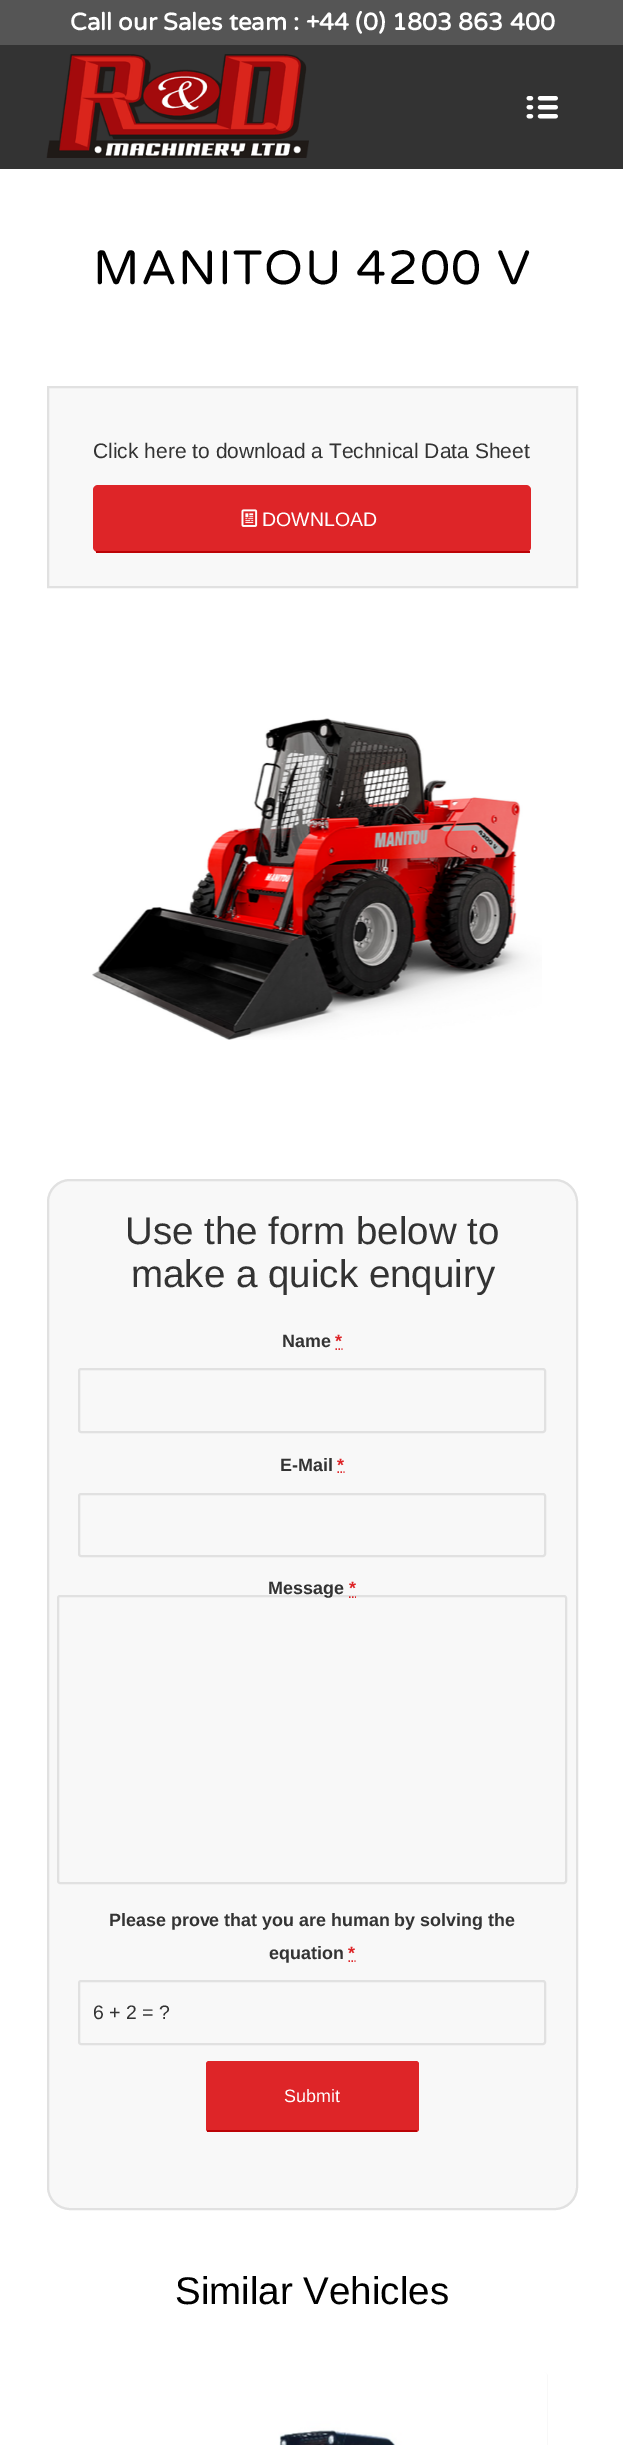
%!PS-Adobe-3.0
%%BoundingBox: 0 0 623 2445
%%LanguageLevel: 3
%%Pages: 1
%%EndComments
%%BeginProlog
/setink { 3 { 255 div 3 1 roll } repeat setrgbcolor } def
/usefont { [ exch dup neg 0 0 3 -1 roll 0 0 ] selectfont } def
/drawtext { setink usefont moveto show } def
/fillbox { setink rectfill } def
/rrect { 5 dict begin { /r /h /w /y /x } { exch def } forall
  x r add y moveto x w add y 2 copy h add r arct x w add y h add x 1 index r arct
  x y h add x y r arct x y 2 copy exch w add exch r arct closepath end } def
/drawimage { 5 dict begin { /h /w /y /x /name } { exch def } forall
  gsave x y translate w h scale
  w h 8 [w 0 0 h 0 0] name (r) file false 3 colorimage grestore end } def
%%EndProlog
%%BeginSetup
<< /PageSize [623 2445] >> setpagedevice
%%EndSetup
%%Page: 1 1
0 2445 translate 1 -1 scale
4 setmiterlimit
0 0 623 2445 255 255 255 fillbox
0 0 623 45 85 85 85 fillbox
(Call our Sales team : +44 \(0\) 1803 863 400) 70 30 /VarelaRound-Bold 24 255 255 255 drawtext
0 45 623 124 51 51 51 fillbox
(assets/img1.rgb) 46 54 263 104 drawimage
(assets/img2.rgb) 526 96 32 23 drawimage
/VarelaRound-Regular 48 usefont
0 0 0 setink
93 284 moveto 1.5 0 (MANITOU 4200 V) ashow
248 248 248 setink
48 387 moveto 577 387 lineto 577 587 lineto 48 587 lineto closepath gsave fill grestore
225 225 225 setink
2 setlinewidth
stroke
(Click here to download a Technical Data Sheet) 93 458 /LiberationSans-Regular 21 51 51 51 drawtext
222 37 40 setink
93 485 438 67 5 rrect fill
96 551 434 2 188 3 6 fillbox
(assets/img3.rgb) 241 509 17 18 drawimage
(DOWNLOAD) 262 526 /LiberationSans-Regular 19.5 255 255 255 drawtext
(assets/img4.rgb) 92 718 450 322 drawimage
248 248 248 setink
48 1180 529 1029 22 rrect gsave fill grestore
225 225 225 setink
stroke
(Use the form below to) 125 1244 /LiberationSans-Regular 38.5 51 51 51 drawtext
(make a quick enquiry) 131 1287 /LiberationSans-Regular 38.5 51 51 51 drawtext
(Name) 282 1347 /LiberationSans-Bold 17.9 51 51 51 drawtext
(*) 335 1347 /LiberationSans-Bold 17.9 222 37 40 drawtext
1.5 setlinewidth
335.5 1349 moveto 337 1349 lineto 338.5 1349 moveto 340 1349 lineto 341.5 1349 moveto 342.5 1349 lineto stroke
225 225 225 setink
2 setlinewidth
79 1369 466 63 2 rrect stroke
(E-Mail) 280 1471 /LiberationSans-Bold 17.9 51 51 51 drawtext
(*) 337 1471 /LiberationSans-Bold 17.9 222 37 40 drawtext
1.5 setlinewidth
337.5 1472 moveto 339 1472 lineto 340.5 1472 moveto 342 1472 lineto 343.5 1472 moveto 344.5 1472 lineto stroke
225 225 225 setink
2 setlinewidth
79 1494 466 62 2 rrect stroke
58 1596 508 287 2 rrect stroke
(Message) 268 1594 /LiberationSans-Bold 17.9 51 51 51 drawtext
(*) 349 1594 /LiberationSans-Bold 17.9 222 37 40 drawtext
1.5 setlinewidth
349 1597 moveto 350.5 1597 lineto 352 1597 moveto 353.5 1597 lineto 355 1597 moveto 356 1597 lineto stroke
(Please prove that you are human by solving the) 109 1926 /LiberationSans-Bold 17.9 51 51 51 drawtext
(equation) 269 1959 /LiberationSans-Bold 17.9 51 51 51 drawtext
(*) 348 1959 /LiberationSans-Bold 17.9 222 37 40 drawtext
348.5 1961 moveto 350 1961 lineto 351.5 1961 moveto 353 1961 lineto 354.5 1961 moveto 355.5 1961 lineto stroke
225 225 225 setink
2 setlinewidth
79 1981 466 63 2 rrect stroke
(6 + 2 = ?) 93 2019 /LiberationSans-Regular 19.5 51 51 51 drawtext
222 37 40 setink
206 2061 213 71 3 rrect fill
207 2130 210 2 188 3 6 fillbox
(Submit) 284 2102 /LiberationSans-Regular 17.9 255 255 255 drawtext
(Similar Vehicles) 175 2304 /LiberationSans-Regular 38.5 0 0 0 drawtext
248 248 248 setink
77 2372 471 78 5 rrect fill
(assets/img5.rgb) 77 2372 470 73 drawimage
showpage
%%EOF
